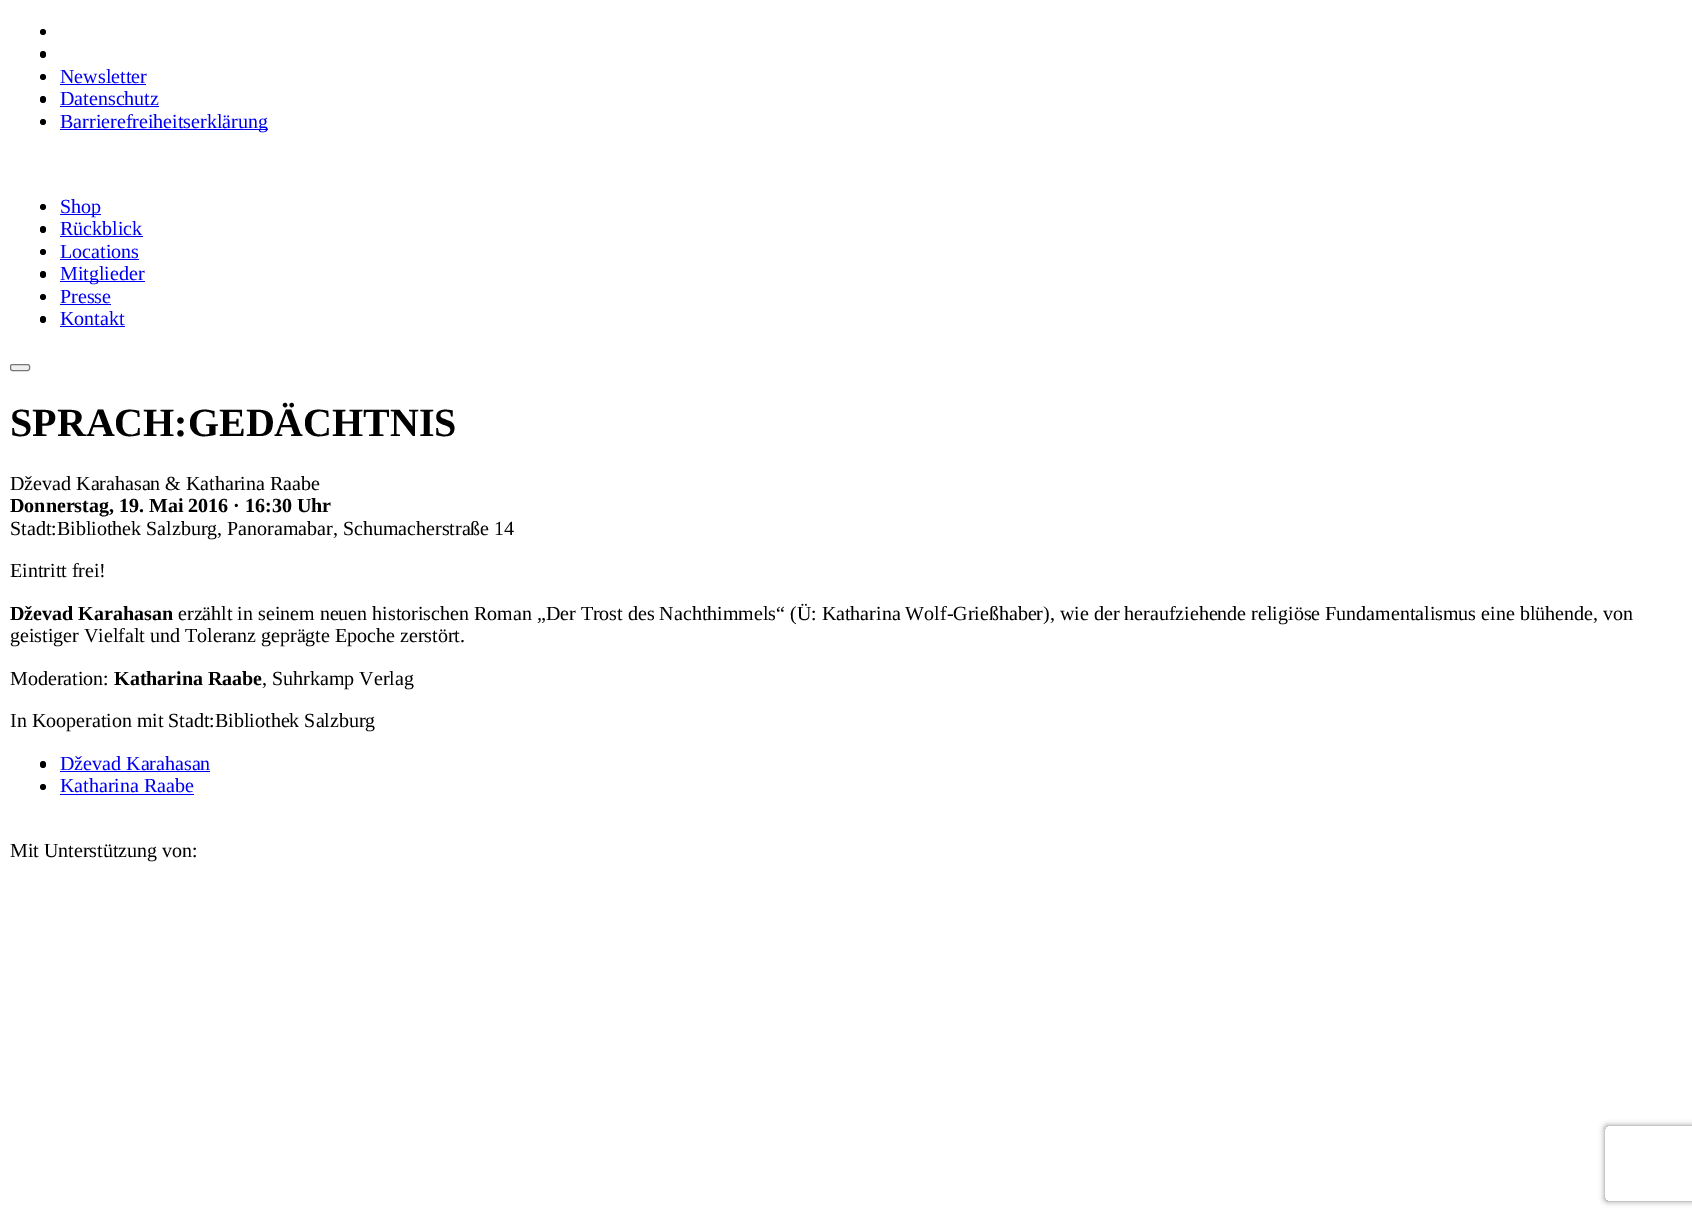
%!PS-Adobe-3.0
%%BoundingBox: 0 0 1692 1218
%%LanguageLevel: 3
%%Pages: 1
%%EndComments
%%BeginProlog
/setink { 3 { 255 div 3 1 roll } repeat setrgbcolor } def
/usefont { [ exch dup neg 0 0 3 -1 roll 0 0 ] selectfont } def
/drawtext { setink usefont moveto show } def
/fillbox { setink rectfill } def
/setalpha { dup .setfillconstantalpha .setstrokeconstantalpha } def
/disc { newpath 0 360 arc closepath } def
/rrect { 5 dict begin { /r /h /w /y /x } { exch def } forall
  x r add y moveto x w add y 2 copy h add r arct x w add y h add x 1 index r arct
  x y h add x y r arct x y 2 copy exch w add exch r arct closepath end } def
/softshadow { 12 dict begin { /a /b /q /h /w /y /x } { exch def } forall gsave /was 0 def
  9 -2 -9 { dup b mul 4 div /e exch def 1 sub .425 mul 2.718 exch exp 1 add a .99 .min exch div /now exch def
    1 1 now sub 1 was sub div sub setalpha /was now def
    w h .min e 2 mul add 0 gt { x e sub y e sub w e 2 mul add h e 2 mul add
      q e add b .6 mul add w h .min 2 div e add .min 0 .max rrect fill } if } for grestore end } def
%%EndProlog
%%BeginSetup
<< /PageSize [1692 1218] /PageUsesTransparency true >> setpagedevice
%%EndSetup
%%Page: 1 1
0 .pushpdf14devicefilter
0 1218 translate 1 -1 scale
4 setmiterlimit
0 0 1692 1218 255 255 255 fillbox
0 0 0 setink
43 32 3 disc fill
40 51 6 7 3 rrect fill
43 77 3 disc fill
(Newsletter) 60 83 /LiberationSerif-Regular 20 0 0 238 drawtext
60 84 86 1 0 0 238 fillbox
0 0 0 setink
40 96 6 7 3 rrect fill
(Datenschutz) 60 105 /LiberationSerif-Regular 20 0 0 238 drawtext
60 106 99 1 0 0 238 fillbox
0 0 0 setink
43 122 3 disc fill
60 129 208 1 0 0 238 fillbox
(Barrierefreiheitserklärung) 60 128 /LiberationSerif-Regular 20 0 0 238 drawtext
0 0 0 setink
43 207 3 disc fill
60 214 41 1 0 0 238 fillbox
(Shop) 60 213 /LiberationSerif-Regular 20 0 0 238 drawtext
0 0 0 setink
40 226 6 7 3 rrect fill
(Rückblick) 60 235 /LiberationSerif-Regular 20 0 0 238 drawtext
60 236 83 1 0 0 238 fillbox
0 0 0 setink
43 252 3 disc fill
(Locations) 60 258 /LiberationSerif-Regular 20 0 0 238 drawtext
60 259 79 1 0 0 238 fillbox
0 0 0 setink
40 271 6 7 3 rrect fill
60 281 85 1 0 0 238 fillbox
(Mitglieder) 60 280 /LiberationSerif-Regular 20 0 0 238 drawtext
0 0 0 setink
43 297 3 disc fill
(Presse) 60 303 /LiberationSerif-Regular 20 0 0 238 drawtext
60 304 51 1 0 0 238 fillbox
0 0 0 setink
40 316 6 7 3 rrect fill
(Kontakt) 60 325 /LiberationSerif-Regular 20 0 0 238 drawtext
60 326 65 1 0 0 238 fillbox
239 239 239 setink
10.5 364.5 19 6 2 rrect gsave fill grestore
118 118 118 setink
stroke
(SPRACH:GEDÄCHTNIS) 10 436 /LiberationSerif-Bold 40 0 0 0 drawtext
(Dževad Karahasan & Katharina Raabe) 10 490 /LiberationSerif-Regular 20 0 0 0 drawtext
(Donnerstag, 19. Mai 2016 · 16:30 Uhr) 10 512 /LiberationSerif-Bold 20 0 0 0 drawtext
(Stadt:Bibliothek Salzburg, Panoramabar, Schumacherstraße 14) 10 535 /LiberationSerif-Regular 20 0 0 0 drawtext
(Eintritt frei!) 10 577 /LiberationSerif-Regular 20 0 0 0 drawtext
(Dževad Karahasan) 10 620 /LiberationSerif-Bold 20 0 0 0 drawtext
(erzählt in seinem neuen historischen Roman „Der Trost des Nachthimmels“ \(Ü: Katharina Wolf-Grießhaber\), wie der heraufziehende religiöse Fundamentalismus eine blühende, von) 178 620 /LiberationSerif-Regular 20 0 0 0 drawtext
(geistiger Vielfalt und Toleranz geprägte Epoche zerstört.) 10 642 /LiberationSerif-Regular 20 0 0 0 drawtext
(Moderation:) 10 685 /LiberationSerif-Regular 20 0 0 0 drawtext
(Katharina Raabe) 114 685 /LiberationSerif-Bold 20 0 0 0 drawtext
(, Suhrkamp Verlag) 262 685 /LiberationSerif-Regular 20 0 0 0 drawtext
(In Kooperation mit Stadt:Bibliothek Salzburg) 10 727 /LiberationSerif-Regular 20 0 0 0 drawtext
40 761 6 7 3 rrect fill
(Dževad Karahasan) 60 770 /LiberationSerif-Regular 20 0 0 238 drawtext
60 771 150 1 0 0 238 fillbox
0 0 0 setink
43 787 3 disc fill
(Katharina Raabe) 60 792 /LiberationSerif-Regular 20 0 0 238 drawtext
60 794 134 1 0 0 238 fillbox
(Mit Unterstützung von:) 10 857 /LiberationSerif-Regular 20 0 0 0 drawtext
gsave
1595 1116 moveto 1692 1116 lineto 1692 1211 lineto 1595 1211 lineto closepath 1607.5 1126 moveto 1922.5 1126 lineto 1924 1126 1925 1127 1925 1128.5 curveto 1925 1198.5 lineto 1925 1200 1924 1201 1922.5 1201 curveto 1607.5 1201 lineto 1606 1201 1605 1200 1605 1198.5 curveto 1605 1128.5 lineto 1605 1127 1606 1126 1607.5 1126 curveto closepath eoclip newpath
128 128 128 setink
1605 1126 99 75 2.5 3 1 softshadow
grestore
.poppdf14devicefilter showpage
%%EOF
